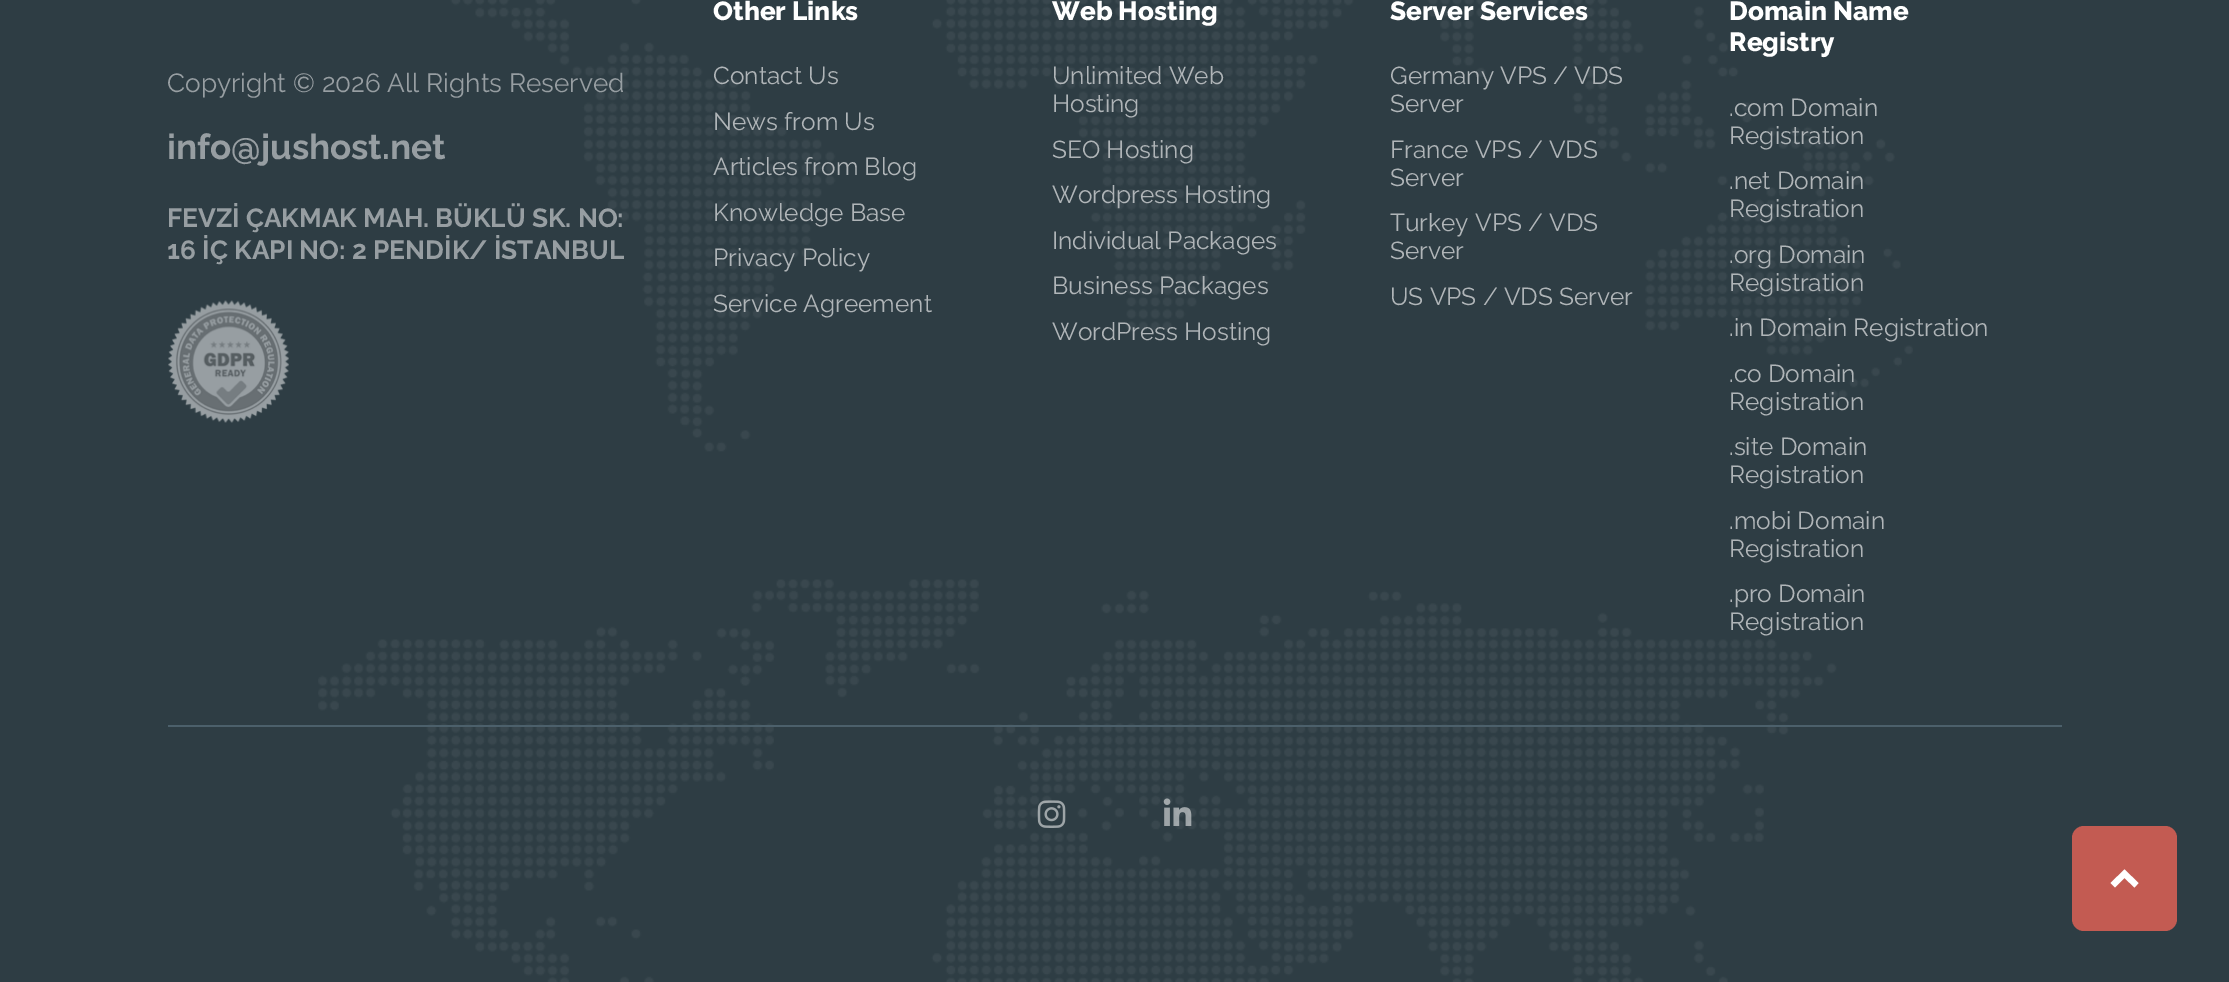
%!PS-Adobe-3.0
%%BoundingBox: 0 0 2229 982
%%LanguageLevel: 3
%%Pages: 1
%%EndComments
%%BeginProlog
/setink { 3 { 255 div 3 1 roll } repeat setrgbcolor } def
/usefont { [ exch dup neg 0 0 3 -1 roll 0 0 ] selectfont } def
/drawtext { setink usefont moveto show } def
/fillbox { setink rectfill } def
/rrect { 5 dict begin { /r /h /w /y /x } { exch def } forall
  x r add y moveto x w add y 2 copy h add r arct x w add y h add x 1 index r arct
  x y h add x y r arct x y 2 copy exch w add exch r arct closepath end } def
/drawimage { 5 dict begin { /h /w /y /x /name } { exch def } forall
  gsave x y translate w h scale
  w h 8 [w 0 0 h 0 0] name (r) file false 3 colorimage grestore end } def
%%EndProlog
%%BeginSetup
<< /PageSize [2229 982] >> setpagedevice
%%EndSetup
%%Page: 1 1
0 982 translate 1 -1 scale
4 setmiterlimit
0 0 2229 982 46 61 68 fillbox
(assets/img1.rgb) 318 0 1595 982 drawimage
(Copyright © 2026 All Rights Reserved) 167 92 /Raleway-Thin 26.25 151 158 162 drawtext
(info@jushost.net) 167 159 /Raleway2-Thin 35 151 158 162 drawtext
(FEVZİ ÇAKMAK MAH. BÜKLÜ SK. NO:) 167 227 /Raleway2-Thin 26.25 151 158 162 drawtext
(16 İÇ KAPI NO: 2 PENDİK/ İSTANBUL) 167 259 /Raleway2-Thin 26.25 151 158 162 drawtext
(assets/img2.rgb) 168 300 121 123 drawimage
(Other Links) 713 20 /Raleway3-Thin 26.25 255 255 255 drawtext
(Contact Us) 713 84 /Raleway-Thin 24.5 176 181 184 drawtext
(News from Us) 713 130 /Raleway-Thin 24.5 176 181 184 drawtext
(Articles from Blog) 713 175 /Raleway-Thin 24.5 176 181 184 drawtext
(Knowledge Base) 713 221 /Raleway-Thin 24.5 176 181 184 drawtext
(Privacy Policy) 713 266 /Raleway-Thin 24.5 176 181 184 drawtext
(Service Agreement) 713 312 /Raleway-Thin 24.5 176 181 184 drawtext
(Web Hosting) 1052 20 /Raleway3-Thin 26.25 255 255 255 drawtext
(Unlimited Web) 1052 84 /Raleway-Thin 24.5 176 181 184 drawtext
(Hosting) 1052 112 /Raleway-Thin 24.5 176 181 184 drawtext
(SEO Hosting) 1052 158 /Raleway-Thin 24.5 176 181 184 drawtext
(Wordpress Hosting) 1052 203 /Raleway-Thin 24.5 176 181 184 drawtext
(Individual Packages) 1052 249 /Raleway-Thin 24.5 176 181 184 drawtext
(Business Packages) 1052 294 /Raleway-Thin 24.5 176 181 184 drawtext
(WordPress Hosting) 1052 340 /Raleway-Thin 24.5 176 181 184 drawtext
(Server Services) 1390 20 /Raleway3-Thin 26.25 255 255 255 drawtext
(Germany VPS / VDS) 1390 84 /Raleway-Thin 24.5 176 181 184 drawtext
(Server) 1390 112 /Raleway-Thin 24.5 176 181 184 drawtext
(France VPS / VDS) 1390 158 /Raleway-Thin 24.5 176 181 184 drawtext
(Server) 1390 186 /Raleway-Thin 24.5 176 181 184 drawtext
(Turkey VPS / VDS) 1390 231 /Raleway-Thin 24.5 176 181 184 drawtext
(Server) 1390 259 /Raleway-Thin 24.5 176 181 184 drawtext
(US VPS / VDS Server) 1390 305 /Raleway-Thin 24.5 176 181 184 drawtext
(Domain Name) 1729 20 /Raleway3-Thin 26.25 255 255 255 drawtext
(Registry) 1729 51 /Raleway3-Thin 26.25 255 255 255 drawtext
(.com Domain) 1729 116 /Raleway-Thin 24.5 176 181 184 drawtext
(Registration) 1729 144 /Raleway-Thin 24.5 176 181 184 drawtext
(.net Domain) 1729 189 /Raleway-Thin 24.5 176 181 184 drawtext
(Registration) 1729 217 /Raleway-Thin 24.5 176 181 184 drawtext
(.org Domain) 1729 263 /Raleway-Thin 24.5 176 181 184 drawtext
(Registration) 1729 291 /Raleway-Thin 24.5 176 181 184 drawtext
(.in Domain Registration) 1729 336 /Raleway-Thin 24.5 176 181 184 drawtext
(.co Domain) 1729 382 /Raleway-Thin 24.5 176 181 184 drawtext
(Registration) 1729 410 /Raleway-Thin 24.5 176 181 184 drawtext
(.site Domain) 1729 455 /Raleway-Thin 24.5 176 181 184 drawtext
(Registration) 1729 483 /Raleway-Thin 24.5 176 181 184 drawtext
(.mobi Domain) 1729 529 /Raleway-Thin 24.5 176 181 184 drawtext
(Registration) 1729 557 /Raleway-Thin 24.5 176 181 184 drawtext
(.pro Domain) 1729 602 /Raleway-Thin 24.5 176 181 184 drawtext
(Registration) 1729 630 /Raleway-Thin 24.5 176 181 184 drawtext
168 725 1894 2 76 96 107 fillbox
(assets/img3.rgb) 1037 800 29 28 drawimage
(assets/img4.rgb) 1163 798 29 28 drawimage
195 91 82 setink
2072 826 105 105 12 rrect fill
255 255 255 setink
2124.5 869.5 moveto 2138.5 883 lineto 2134.5 887.5 lineto 2124.5 878 lineto 2115 887.5 lineto 2110.5 883 lineto closepath fill
showpage
%%EOF
